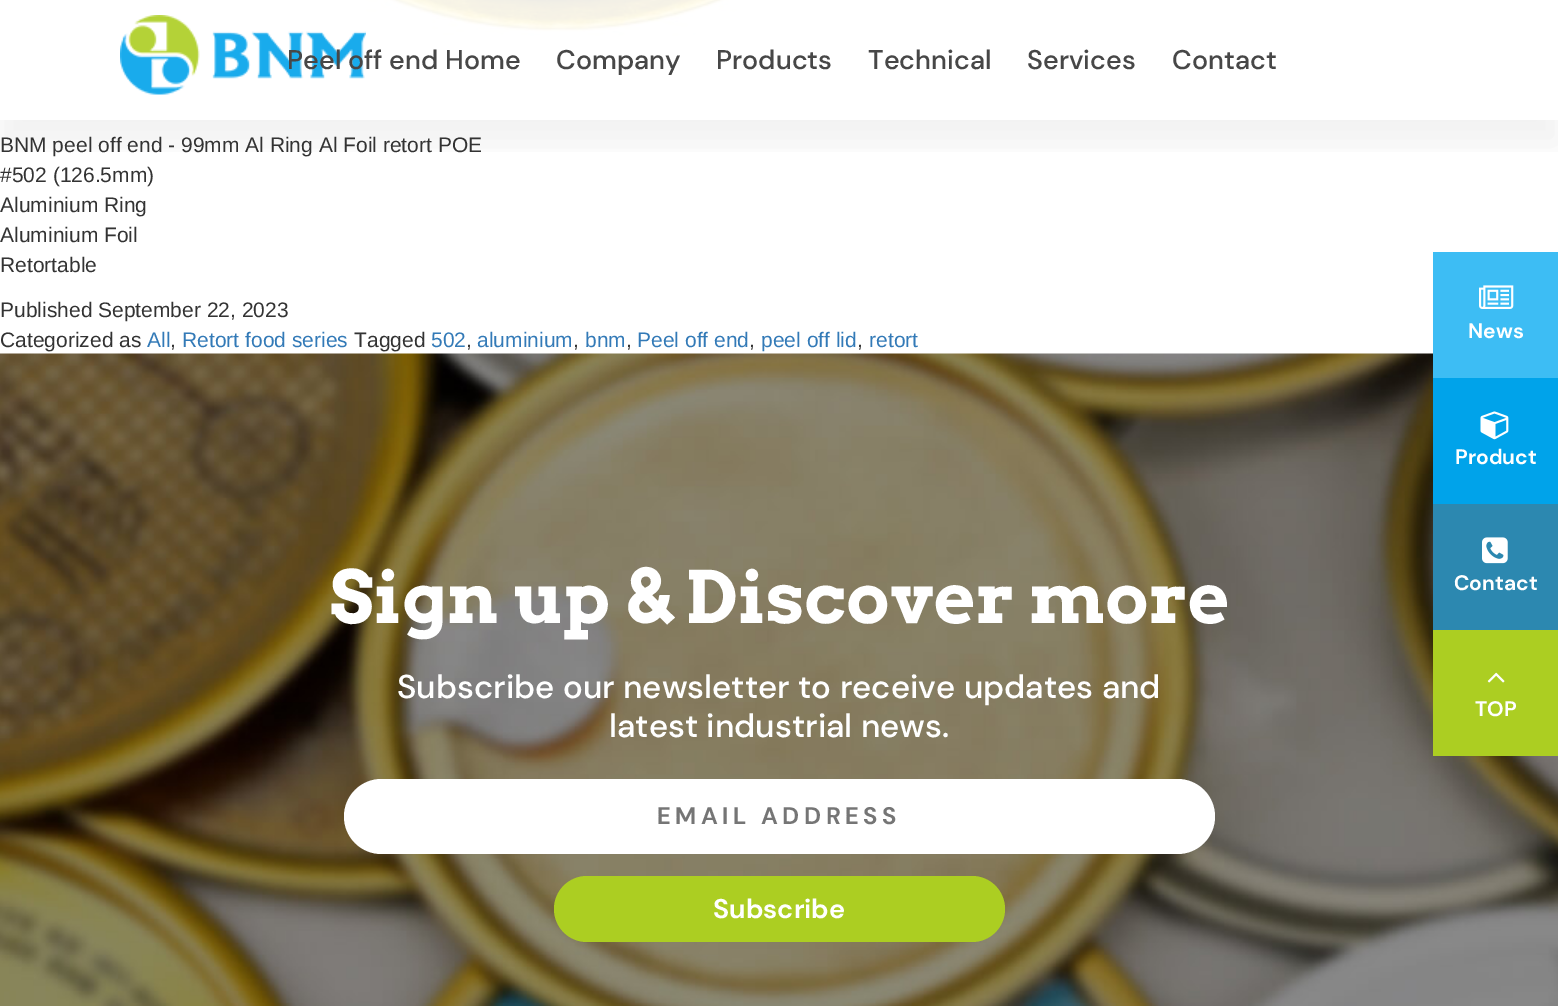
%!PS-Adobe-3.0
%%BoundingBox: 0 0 1558 1006
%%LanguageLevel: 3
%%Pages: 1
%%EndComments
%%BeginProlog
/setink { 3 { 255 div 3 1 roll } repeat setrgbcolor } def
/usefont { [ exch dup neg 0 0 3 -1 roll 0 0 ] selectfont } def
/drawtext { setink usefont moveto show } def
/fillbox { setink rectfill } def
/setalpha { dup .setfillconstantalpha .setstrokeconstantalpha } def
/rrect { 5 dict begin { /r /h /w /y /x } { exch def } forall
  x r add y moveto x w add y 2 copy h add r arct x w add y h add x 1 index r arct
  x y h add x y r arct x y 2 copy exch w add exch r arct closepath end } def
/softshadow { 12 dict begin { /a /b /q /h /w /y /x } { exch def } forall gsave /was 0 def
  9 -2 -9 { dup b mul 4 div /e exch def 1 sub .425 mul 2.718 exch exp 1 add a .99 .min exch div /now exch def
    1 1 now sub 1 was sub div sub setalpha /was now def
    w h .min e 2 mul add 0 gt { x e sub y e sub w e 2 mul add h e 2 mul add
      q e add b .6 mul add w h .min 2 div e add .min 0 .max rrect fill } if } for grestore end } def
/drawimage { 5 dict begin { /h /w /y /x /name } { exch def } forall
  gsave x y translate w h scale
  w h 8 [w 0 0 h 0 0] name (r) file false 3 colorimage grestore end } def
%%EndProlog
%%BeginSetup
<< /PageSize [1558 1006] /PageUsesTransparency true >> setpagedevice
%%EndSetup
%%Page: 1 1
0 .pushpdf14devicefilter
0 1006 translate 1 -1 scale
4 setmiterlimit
0 0 1558 1006 255 255 255 fillbox
(assets/img2.rgb) 365 0 374 36 drawimage
gsave
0 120 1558 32 rectclip
14 13 18 setink
0 24 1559 120 0 18 0.06 softshadow
grestore
(assets/img1.rgb) 120 15 246 80 drawimage
(Peel off end Home) 287 69 /DMSans-Medium 27 71 71 71 drawtext
(Company) 556 69 /DMSans-Medium 27 71 71 71 drawtext
(Products) 716 69 /DMSans-Medium 27 71 71 71 drawtext
(Technical) 868 69 /DMSans-Medium 27 71 71 71 drawtext
(Services) 1027 69 /DMSans-Medium 27 71 71 71 drawtext
(Contact) 1172 69 /DMSans-Medium 27 71 71 71 drawtext
(BNM peel off end - 99mm Al Ring Al Foil retort POE) 0 152 /LiberationSans-Regular 21 51 51 51 drawtext
(#502 \(126.5mm\)) 0 182 /LiberationSans-Regular 21 51 51 51 drawtext
(Aluminium Ring) 0 212 /LiberationSans-Regular 21 51 51 51 drawtext
(Aluminium Foil) 0 242 /LiberationSans-Regular 21 51 51 51 drawtext
(Retortable) 0 272 /LiberationSans-Regular 21 51 51 51 drawtext
(Published September 22, 2023) 0 317 /LiberationSans-Regular 21 51 51 51 drawtext
(Categorized as) 0 347 /LiberationSans-Regular 21 51 51 51 drawtext
(All) 147 347 /LiberationSans-Regular 21 51 122 183 drawtext
(,) 170 347 /LiberationSans-Regular 21 51 51 51 drawtext
(Retort food series) 182 347 /LiberationSans-Regular 21 51 122 183 drawtext
(Tagged) 354 347 /LiberationSans-Regular 21 51 51 51 drawtext
(502) 431 347 /LiberationSans-Regular 21 51 122 183 drawtext
(,) 466 347 /LiberationSans-Regular 21 51 51 51 drawtext
(aluminium) 477 347 /LiberationSans-Regular 21 51 122 183 drawtext
(,) 573 347 /LiberationSans-Regular 21 51 51 51 drawtext
(bnm) 585 347 /LiberationSans-Regular 21 51 122 183 drawtext
(,) 626 347 /LiberationSans-Regular 21 51 51 51 drawtext
(Peel off end) 637 347 /LiberationSans-Regular 21 51 122 183 drawtext
(,) 749 347 /LiberationSans-Regular 21 51 51 51 drawtext
(peel off lid) 761 347 /LiberationSans-Regular 21 51 122 183 drawtext
(,) 857 347 /LiberationSans-Regular 21 51 51 51 drawtext
(retort) 869 347 /LiberationSans-Regular 21 51 122 183 drawtext
(assets/img3.rgb) 0 353 1558 653 drawimage
(Sign up & Discover more) 330 623 /Arvo-Bold 72 255 255 255 drawtext
(Subscribe our newsletter to receive updates and) 397 698 /DMSans-Medium 33 255 255 255 drawtext
(latest industrial news.) 609 737 /DMSans-Medium 33 255 255 255 drawtext
344 779 871 75 37.5 rrect fill
/DMSans-Bold 24 usefont
117 117 117 setink
657 824 moveto 4.5 0 (EMAIL ADDRESS) ashow
172 206 34 setink
554 876 451 66 33 rrect fill
(Subscribe) 713 918 /DMSans-Bold 27 255 255 255 drawtext
1433 252 125 126 61 189 244 fillbox
(assets/img4.rgb) 1479 285 35 24 drawimage
(News) 1468 338 /DMSans-Bold 21 255 255 255 drawtext
1433 378 125 126 0 163 234 fillbox
(assets/img5.rgb) 1480 411 29 29 drawimage
(Product) 1455 464 /DMSans-Bold 21 255 255 255 drawtext
1433 504 125 126 44 136 176 fillbox
(assets/img6.rgb) 1482 537 26 27 drawimage
(Contact) 1454 590 /DMSans-Bold 21 255 255 255 drawtext
1433 630 125 126 172 206 34 fillbox
(assets/img7.rgb) 1487 672 18 11 drawimage
(TOP) 1475 716 /DMSans-Bold 21 255 255 255 drawtext
.poppdf14devicefilter showpage
%%EOF
